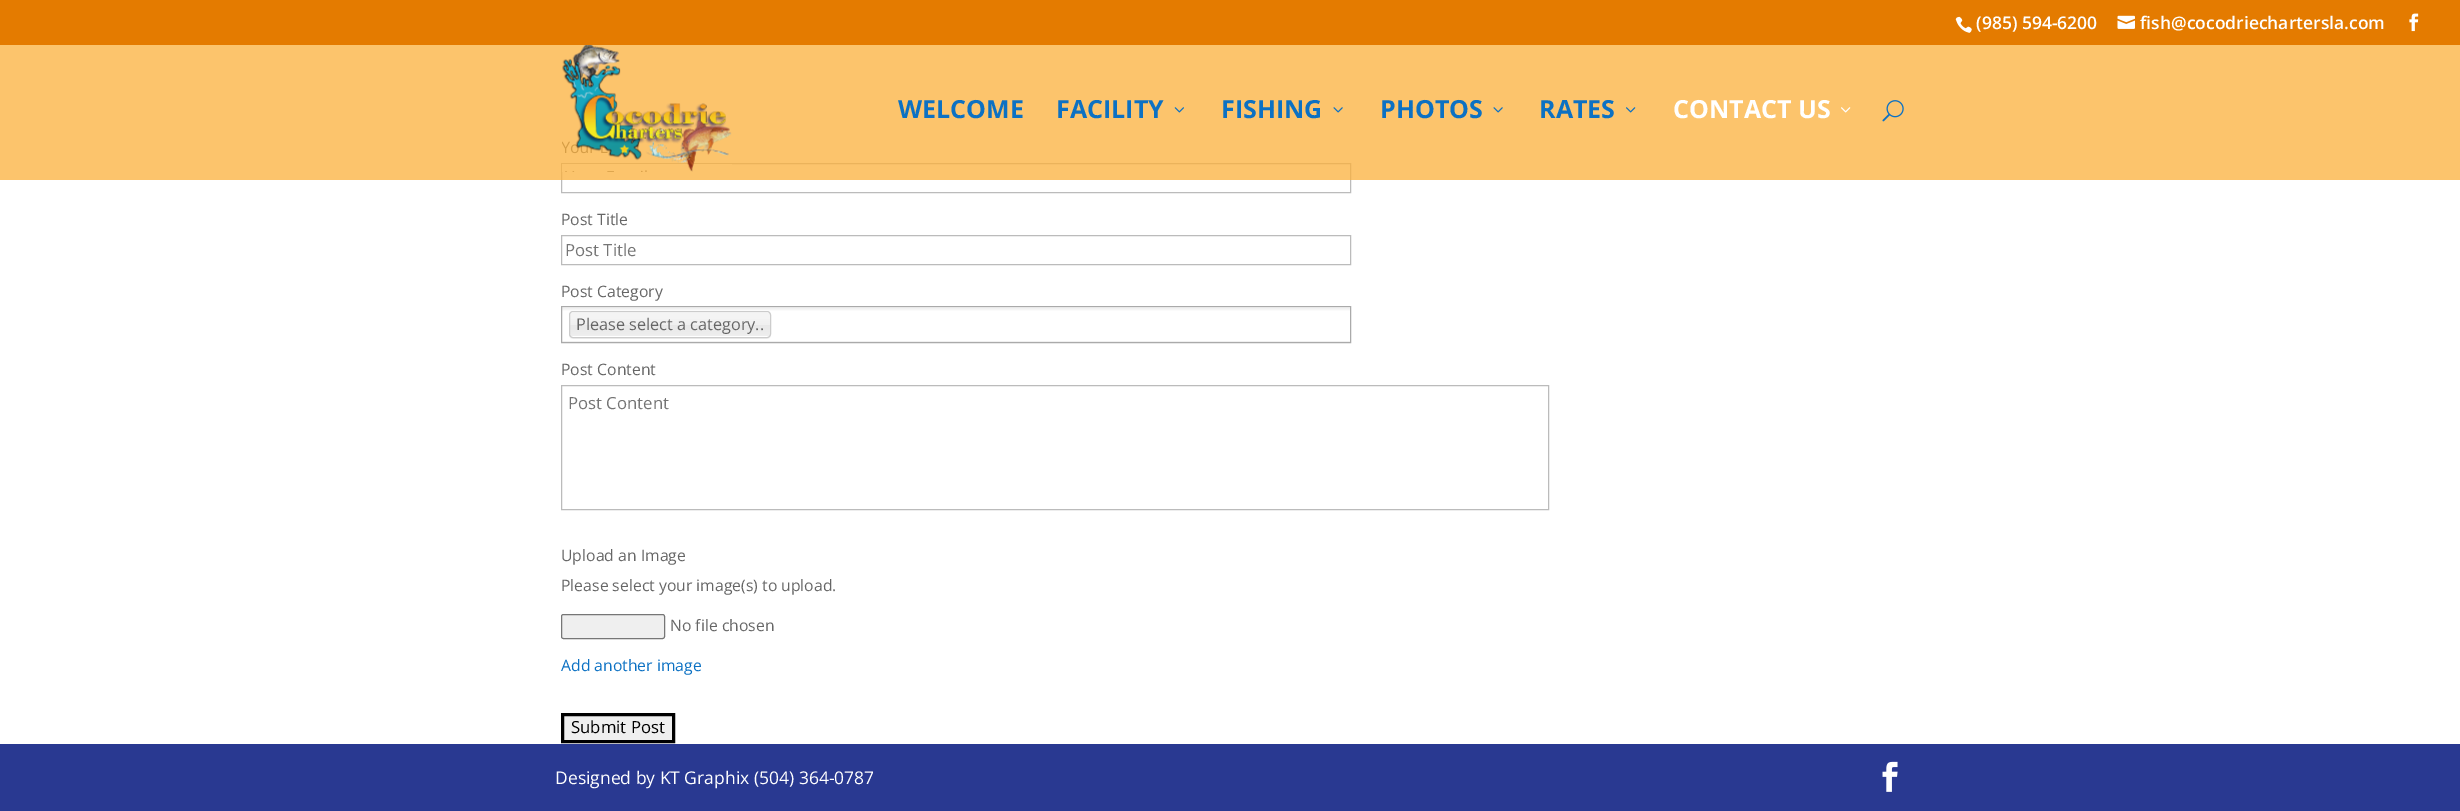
%!PS-Adobe-3.0
%%BoundingBox: 0 0 2460 811
%%LanguageLevel: 3
%%Pages: 1
%%EndComments
%%BeginProlog
/setink { 3 { 255 div 3 1 roll } repeat setrgbcolor } def
/usefont { [ exch dup neg 0 0 3 -1 roll 0 0 ] selectfont } def
/drawtext { setink usefont moveto show } def
/fillbox { setink rectfill } def
/setalpha { dup .setfillconstantalpha .setstrokeconstantalpha } def
/rrect { 5 dict begin { /r /h /w /y /x } { exch def } forall
  x r add y moveto x w add y 2 copy h add r arct x w add y h add x 1 index r arct
  x y h add x y r arct x y 2 copy exch w add exch r arct closepath end } def
/drawimage { 5 dict begin { /h /w /y /x /name } { exch def } forall
  gsave x y translate w h scale
  w h 8 [w 0 0 h 0 0] name (r) file false 3 colorimage grestore end } def
%%EndProlog
%%BeginSetup
<< /PageSize [2460 811] /PageUsesTransparency true >> setpagedevice
%%EndSetup
%%Page: 1 1
0 .pushpdf14devicefilter
0 811 translate 1 -1 scale
4 setmiterlimit
0 0 2460 811 255 255 255 fillbox
0 0 2460 45 228 123 0 fillbox
(assets/img1.rgb) 1955 16 17 17 drawimage
(\(985\) 594-6200) 1976 29 /OpenSans-SemiBold 17.5 255 255 255 drawtext
(assets/img2.rgb) 2117 15 18 14 drawimage
(fish@cocodriechartersla.com) 2140 29 /OpenSans-SemiBold 17.5 255 255 255 drawtext
(assets/img3.rgb) 2409 13 10 19 drawimage
187 187 187 setink
561.5 163.5 789 29 rectstroke
0.75 setalpha
0 45 2460 135 251 176 59 fillbox
1 setalpha
(assets/img4.rgb) 562 45 170 127 drawimage
(WELCOME) 898 118 /OpenSans-Bold 25 12 113 195 drawtext
(FACILITY) 1056 118 /OpenSans-Bold 25 12 113 195 drawtext
(assets/img5.rgb) 1174 107 10 6 drawimage
(FISHING) 1221 118 /OpenSans-Bold 25 12 113 195 drawtext
(assets/img6.rgb) 1333 107 10 6 drawimage
(PHOTOS) 1380 118 /OpenSans-Bold 25 12 113 195 drawtext
(assets/img6.rgb) 1493 107 10 6 drawimage
(RATES) 1539 118 /OpenSans-Bold 25 12 113 195 drawtext
(assets/img7.rgb) 1626 107 10 6 drawimage
(CONTACT US) 1673 118 /OpenSans-Bold 25 255 255 255 drawtext
(assets/img8.rgb) 1841 107 10 6 drawimage
(assets/img9.rgb) 1882 100 22 22 drawimage
(Post Title) 561 225 /OpenSans-Regular 15.75 102 102 102 drawtext
187 187 187 setink
561.5 235.5 789 29 rectstroke
(Post Title) 565 256 /OpenSans-Regular 16.75 117 117 117 drawtext
(Post Category) 561 297 /OpenSans-Regular 15.75 102 102 102 drawtext
gsave 562 308 moveto 1350 308 lineto 1350 311 lineto 562 311 lineto closepath clip newpath
<< /ShadingType 2 /ColorSpace /DeviceRGB /Coords [956 307 956 341] /Extend [true true] /Function << /FunctionType 3 /Domain [0 1] /Functions [<< /FunctionType 2 /Domain [0 1] /C0 [0.933 0.933 0.933] /C1 [0.933 0.933 0.933] /N 1 >> << /FunctionType 2 /Domain [0 1] /C0 [0.933 0.933 0.933] /C1 [1 1 1] /N 1 >> << /FunctionType 2 /Domain [0 1] /C0 [1 1 1] /C1 [1 1 1] /N 1 >>] /Bounds [0.01 0.15] /Encode [0 1 0 1 0 1] >> >> shfill grestore
gsave 561 341 moveto 1351 341 lineto 1351 342 lineto 561 342 lineto closepath clip newpath
<< /ShadingType 2 /ColorSpace /DeviceRGB /Coords [956 341 956 375] /Extend [true true] /Function << /FunctionType 3 /Domain [0 1] /Functions [<< /FunctionType 2 /Domain [0 1] /C0 [0.933 0.933 0.933] /C1 [0.933 0.933 0.933] /N 1 >> << /FunctionType 2 /Domain [0 1] /C0 [0.933 0.933 0.933] /C1 [1 1 1] /N 1 >> << /FunctionType 2 /Domain [0 1] /C0 [1 1 1] /C1 [1 1 1] /N 1 >>] /Bounds [0.01 0.15] /Encode [0 1 0 1 0 1] >> >> shfill grestore
170 170 170 setink
561.5 306.5 789 36 rectstroke
242 242 242 setink
569 335 moveto 569 337 571 339 573 339 curveto 767 339 lineto 769 339 771 337 771 335 curveto 770 337 769 338 768 338 curveto 572 338 lineto 571 338 570 337 569 335 curveto closepath fill
gsave 570 313 200 23 2.5 rrect clip newpath
<< /ShadingType 2 /ColorSpace /DeviceRGB /Coords [670 313 670 336] /Extend [true true] /Function << /FunctionType 3 /Domain [0 1] /Functions [<< /FunctionType 2 /Domain [0 1] /C0 [0.957 0.957 0.957] /C1 [0.957 0.957 0.957] /N 1 >> << /FunctionType 2 /Domain [0 1] /C0 [0.957 0.957 0.957] /C1 [0.941 0.941 0.941] /N 1 >> << /FunctionType 2 /Domain [0 1] /C0 [0.941 0.941 0.941] /C1 [0.91 0.91 0.91] /N 1 >> << /FunctionType 2 /Domain [0 1] /C0 [0.91 0.91 0.91] /C1 [0.933 0.933 0.933] /N 1 >>] /Bounds [0.2 0.5 0.52] /Encode [0 1 0 1 0 1 0 1] >> >> shfill grestore
204 204 204 setink
569.5 311.5 201 26 3.5 rrect stroke
(Please select a category..) 576 330 /OpenSans-Regular 16.25 102 102 102 drawtext
(Post Content) 561 375 /OpenSans-Regular 15.75 102 102 102 drawtext
187 187 187 setink
561.5 385.5 987 124 rectstroke
(Post Content) 568 409 /OpenSans-Regular 16.75 117 117 117 drawtext
(Upload an Image) 561 561 /OpenSans-Regular 15.75 102 102 102 drawtext
(Please select your image\(s\) to upload.) 561 591 /OpenSans-Regular 15.75 102 102 102 drawtext
239 239 239 setink
561.5 614.5 103 24 2 rrect gsave fill grestore
118 118 118 setink
stroke
(No file chosen) 670 631 /OpenSans-Regular 15.75 102 102 102 drawtext
(Add another image) 561 671 /OpenSans-Regular 15.75 12 113 195 drawtext
239 239 239 setink
562.5 714.5 moveto 673.5 714.5 lineto 673.5 741.5 lineto 562.5 741.5 lineto closepath gsave fill grestore
0 0 0 setink
3 setlinewidth
stroke
(Submit Post) 571 733 /OpenSans-Regular 16.75 0 0 0 drawtext
0 744 2460 67 41 57 145 fillbox
(Designed by KT Graphix \(504\) 364-0787) 555 784 /OpenSans-Regular 17.5 255 255 255 drawtext
(assets/img10.rgb) 1882 761 16 31 drawimage
.poppdf14devicefilter showpage
%%EOF
